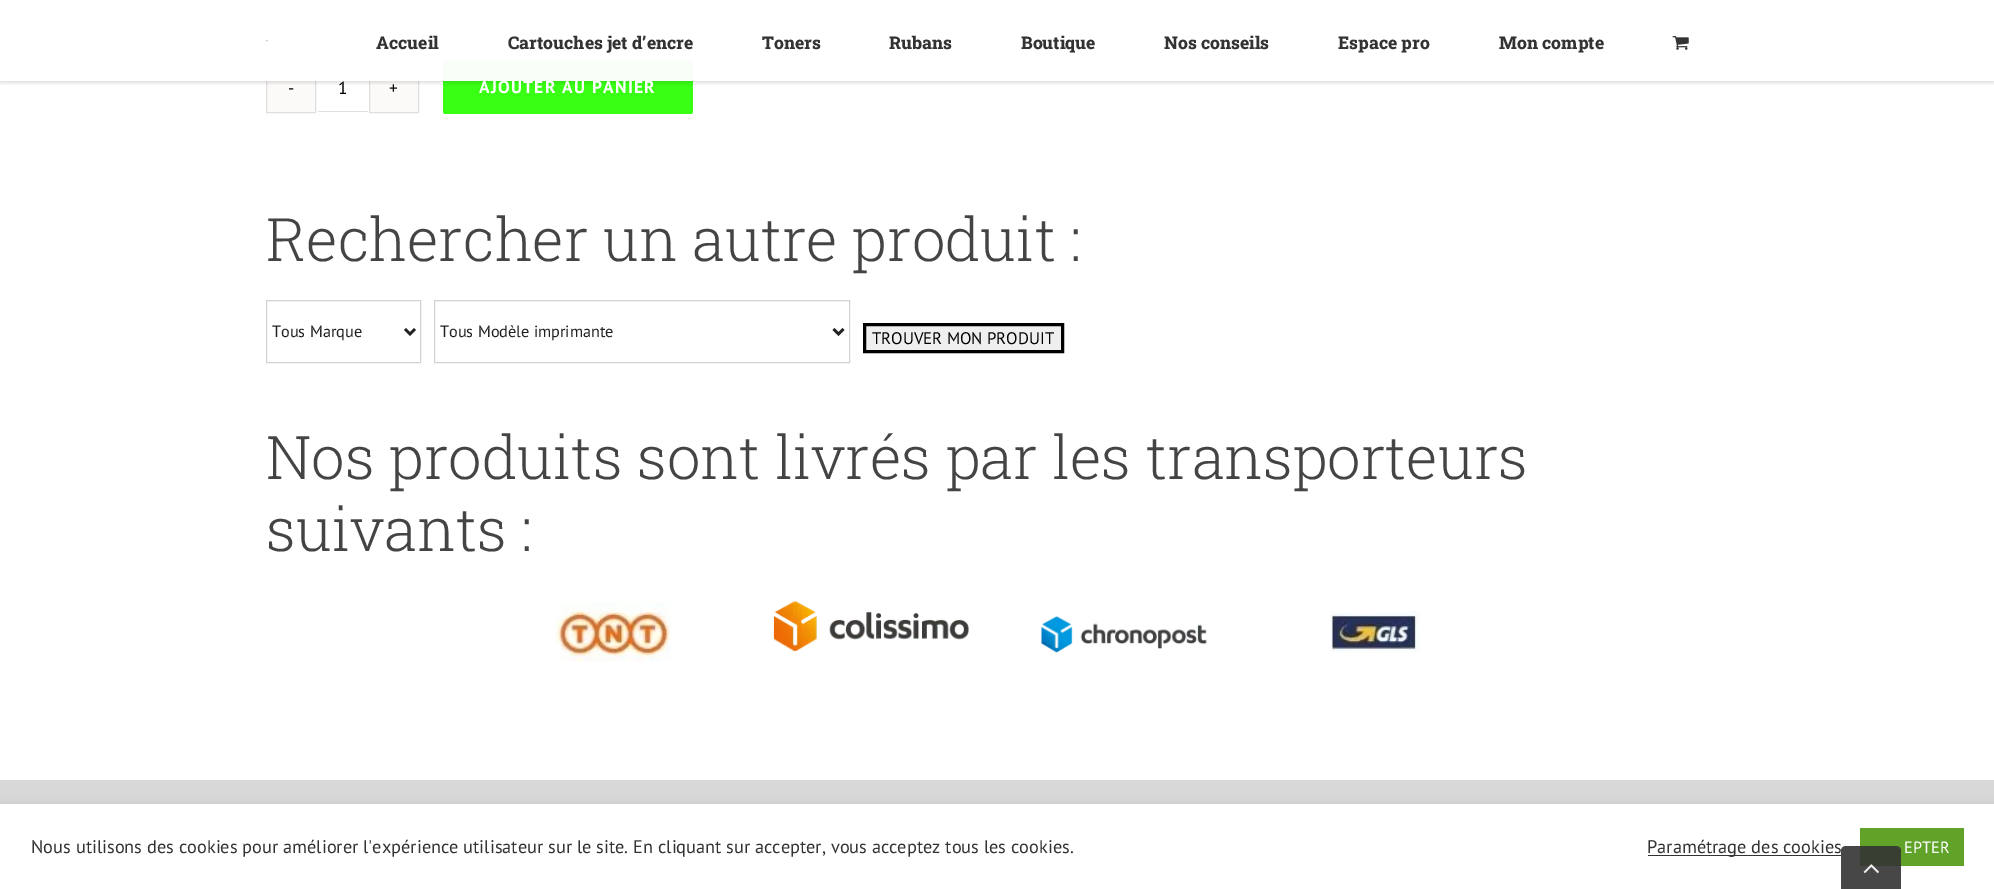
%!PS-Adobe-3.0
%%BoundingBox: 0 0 1994 889
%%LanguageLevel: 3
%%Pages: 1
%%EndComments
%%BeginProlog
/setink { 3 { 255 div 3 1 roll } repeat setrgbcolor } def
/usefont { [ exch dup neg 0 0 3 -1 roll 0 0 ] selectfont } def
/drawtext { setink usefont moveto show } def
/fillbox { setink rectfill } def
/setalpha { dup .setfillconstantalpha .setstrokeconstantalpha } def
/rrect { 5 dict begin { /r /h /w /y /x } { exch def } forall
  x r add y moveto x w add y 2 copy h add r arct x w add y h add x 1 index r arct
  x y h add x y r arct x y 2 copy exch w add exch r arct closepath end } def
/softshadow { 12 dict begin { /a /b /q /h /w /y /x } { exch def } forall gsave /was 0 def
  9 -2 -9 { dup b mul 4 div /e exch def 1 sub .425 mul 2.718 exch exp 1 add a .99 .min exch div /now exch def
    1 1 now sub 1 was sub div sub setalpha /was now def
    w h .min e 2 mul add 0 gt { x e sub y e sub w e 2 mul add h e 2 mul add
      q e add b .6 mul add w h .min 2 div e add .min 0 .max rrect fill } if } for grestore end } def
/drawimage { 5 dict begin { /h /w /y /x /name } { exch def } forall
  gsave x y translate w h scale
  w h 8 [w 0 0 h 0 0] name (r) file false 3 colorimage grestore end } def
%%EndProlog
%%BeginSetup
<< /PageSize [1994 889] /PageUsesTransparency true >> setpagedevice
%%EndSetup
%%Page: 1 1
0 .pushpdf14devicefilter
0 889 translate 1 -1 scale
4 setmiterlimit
0 0 1994 889 255 255 255 fillbox
251 250 249 setink
266.5 63.5 moveto 315.5 63.5 lineto 315.5 112.5 lineto 266.5 112.5 lineto closepath gsave fill grestore
224 222 222 setink
stroke
318 63 50 1 224 222 222 fillbox
251 250 249 setink
369.5 63.5 moveto 418.5 63.5 lineto 418.5 112.5 lineto 369.5 112.5 lineto closepath gsave fill grestore
224 222 222 setink
stroke
57 255 20 setink
443 60 250 54 2.5 rrect fill
gsave
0 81 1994 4 rectclip
0 0 0 setink
0 1 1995 82 0 2 0.12 softshadow
grestore
/PTSans-Bold 17.5 usefont
255 255 255 setink
479 93 moveto 1.25 0 (AJOUTER AU PANIER) ashow
0.97 setalpha
266 60 427 21 255 255 255 fillbox
1 setalpha
(assets/img1.rgb) 266 40 3 2 drawimage
(Accueil) 376 49 /RobotoSlab-ExtraBold 17.5 51 51 51 drawtext
(Cartouches jet d’encre) 508 49 /RobotoSlab-ExtraBold 17.5 51 51 51 drawtext
(Toners) 762 49 /RobotoSlab-ExtraBold 17.5 51 51 51 drawtext
(Rubans) 889 49 /RobotoSlab-ExtraBold 17.5 51 51 51 drawtext
(Boutique) 1021 49 /RobotoSlab-ExtraBold 17.5 51 51 51 drawtext
(Nos conseils) 1164 49 /RobotoSlab-ExtraBold 17.5 51 51 51 drawtext
(Espace pro) 1338 49 /RobotoSlab-ExtraBold 17.5 51 51 51 drawtext
(Mon compte) 1499 49 /RobotoSlab-ExtraBold 17.5 51 51 51 drawtext
(assets/img2.rgb) 1672 36 17 14 drawimage
(-) 288 94 /PTSans-Regular 17.5 0 0 0 drawtext
318 111 50 1 224 222 222 fillbox
(1) 338 94 /PTSans-Regular 17.5 0 0 0 drawtext
(+) 389 94 /PTSans-Regular 17.5 0 0 0 drawtext
(Rechercher un autre produit :) 266 261 /RobotoSlab-Light 60 68 68 68 drawtext
210 210 210 setink
266.5 300.5 154 62 rectstroke
34 34 34 setink
2.5 setlinewidth
405 329 moveto 410 334 lineto 415 329 lineto stroke
(Tous Marque) 272 337 /PTSans-Regular 16.25 34 34 34 drawtext
210 210 210 setink
1 setlinewidth
434.5 300.5 415 62 rectstroke
34 34 34 setink
2.5 setlinewidth
833.5 329 moveto 838.5 334 lineto 843.5 329 lineto stroke
(Tous Modèle imprimante) 440 337 /PTSans-Regular 16.25 34 34 34 drawtext
239 239 239 setink
864.5 324.5 moveto 1062.5 324.5 lineto 1062.5 351.5 lineto 864.5 351.5 lineto closepath gsave fill grestore
0 0 0 setink
3 setlinewidth
stroke
(TROUVER MON PRODUIT) 872 344 /PTSans-Regular 16.75 0 0 0 drawtext
(Nos produits sont livrés par les transporteurs) 266 479 /RobotoSlab-Light 60 68 68 68 drawtext
(suivants :) 266 551 /RobotoSlab-Light 60 68 68 68 drawtext
(assets/img3.rgb) 554 602 117 60 drawimage
(assets/img4.rgb) 773 601 196 51 drawimage
(assets/img5.rgb) 1040 616 167 37 drawimage
(assets/img6.rgb) 1330 611 90 41 drawimage
0 780 1994 24 216 216 216 fillbox
172 171 171 setink
0 803 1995 86 0 6 0.3 softshadow
0 804 1994 85 255 255 255 fillbox
(Nous utilisons des cookies pour améliorer l'expérience utilisateur sur le site. En cliquant sur accepter, vous acceptez tous les cookies.) 31 853 /PTSans-Regular 18.33 51 51 51 drawtext
1648 855 193 1 51 51 51 fillbox
(Paramétrage des cookies) 1647 853 /PTSans-Regular 18.33 51 51 51 drawtext
1860 828 104 38 97 162 41 fillbox
(EPTER) 1904 853 /PTSans-Regular 16.25 255 255 255 drawtext
0.9 setalpha
51 51 51 setink
1846 846 moveto 1896 846 lineto 1899 846 1901 848 1901 851 curveto 1901 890 lineto 1841 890 lineto 1841 851 lineto 1841 848 1843 846 1846 846 curveto closepath fill
1 setalpha
(assets/img7.rgb) 1863 864 16 10 drawimage
.poppdf14devicefilter showpage
%%EOF
